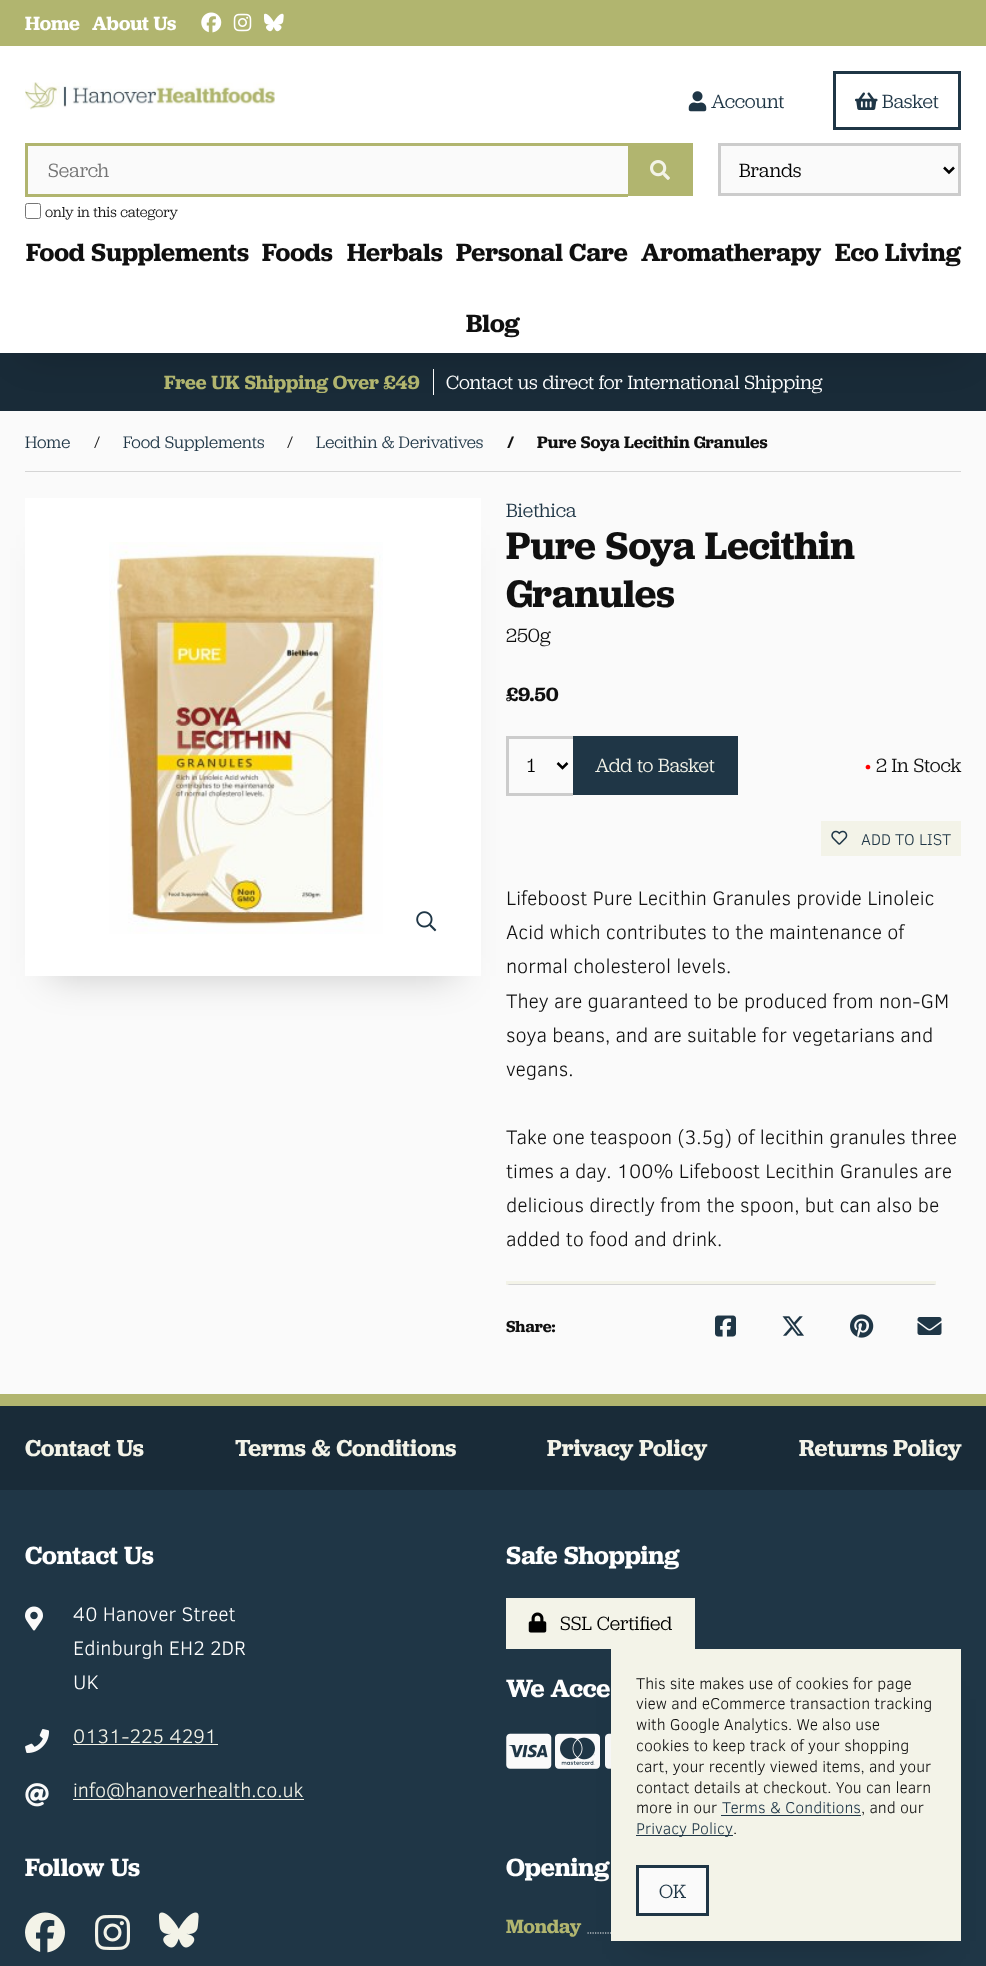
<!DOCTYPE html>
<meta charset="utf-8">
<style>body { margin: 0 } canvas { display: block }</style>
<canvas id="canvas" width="986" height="1966"></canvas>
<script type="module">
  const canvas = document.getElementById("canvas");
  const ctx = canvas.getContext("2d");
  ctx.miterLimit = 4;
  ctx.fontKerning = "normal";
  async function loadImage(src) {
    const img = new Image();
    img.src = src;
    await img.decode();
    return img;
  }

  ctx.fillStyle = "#fafafa";
  ctx.fillRect(0, 0, 986, 1966);
  ctx.fillStyle = "#b1b56f";
  ctx.fillRect(0, 0, 986, 46);
  ctx.font = "600 20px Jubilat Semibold";
  ctx.fillStyle = "#ffffff";
  ctx.fillText("Home", 25, 30);
  ctx.fillText("About Us", 92, 30);
  ctx.drawImage(await loadImage("img1.png"), 201, 12, 21, 21);
  ctx.drawImage(await loadImage("img2.png"), 233, 13, 19, 19);
  ctx.drawImage(await loadImage("img3.png"), 264, 13, 20, 19);
  ctx.fillRect(0, 46, 986, 307);
  ctx.drawImage(await loadImage("img4.png"), 25, 82, 250, 28);
  ctx.drawImage(await loadImage("img5.png"), 688, 91, 19, 21);
  ctx.font = "20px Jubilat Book";
  ctx.fillStyle = "#1f3646";
  ctx.fillText("Account", 711, 108);
  ctx.strokeStyle = "#1f3646";
  ctx.lineWidth = 3;
  ctx.strokeRect(834.5, 72.5, 125, 56);
  ctx.drawImage(await loadImage("img6.png"), 855, 92, 23, 18);
  ctx.fillText("Basket", 882, 108);
  ctx.fillStyle = "#fafafa";
  ctx.fillRect(28, 146, 600, 48);
  ctx.fillStyle = "#b1b56f";
  ctx.fillRect(25, 143, 603, 3);
  ctx.fillRect(25, 194, 603, 3);
  ctx.fillRect(25, 143, 3, 53);
  ctx.fillStyle = "#757575";
  ctx.fillText("Search", 48, 177);
  ctx.fillStyle = "#b1b56f";
  ctx.fillRect(628, 143, 65, 53);
  ctx.drawImage(await loadImage("img7.png"), 650, 160, 20, 20);
  ctx.fillStyle = "#192b38";
  ctx.fillRect(0, 353, 986, 58);
  ctx.fillStyle = "#ffffff";
  ctx.fillRect(433, 369, 1, 26);
  ctx.save();
  ctx.beginPath();
  ctx.moveTo(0, 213);
  ctx.lineTo(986, 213);
  ctx.lineTo(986, 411);
  ctx.lineTo(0, 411);
  ctx.closePath();
  ctx.moveTo(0, 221);
  ctx.lineTo(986, 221);
  ctx.lineTo(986, 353);
  ctx.lineTo(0, 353);
  ctx.closePath();
  ctx.clip("evenodd");
  ctx.fillStyle = "rgba(0, 0, 0, 0.2)";
  ctx.filter = "blur(19px)";
  ctx.beginPath();
  ctx.rect(25, 271, 936, 82);
  ctx.fill();
  ctx.filter = "none";
  ctx.restore();
  ctx.beginPath();
  ctx.roundRect(25.5, 203.5, 15, 15, 2);
  ctx.strokeStyle = "#767676";
  ctx.lineWidth = 1;
  ctx.stroke();
  ctx.font = "15px Jubilat Book";
  ctx.fillStyle = "#101010";
  ctx.fillText("only in this category", 45, 217);
  ctx.fillStyle = "#fafafa";
  ctx.beginPath();
  ctx.rect(719.5, 144.5, 240, 50);
  ctx.fill();
  ctx.strokeStyle = "#cccccc";
  ctx.lineWidth = 3;
  ctx.stroke();
  ctx.beginPath();
  ctx.moveTo(944, 167.5);
  ctx.lineTo(949, 172.5);
  ctx.lineTo(954, 167.5);
  ctx.strokeStyle = "#000000";
  ctx.lineWidth = 2.5;
  ctx.stroke();
  ctx.font = "20px Jubilat Book";
  ctx.fillStyle = "#000000";
  ctx.fillText("Brands", 739, 177);
  ctx.font = "600 26px Jubilat Semibold";
  ctx.fillStyle = "#101010";
  ctx.fillText("Food Supplements", 26, 261);
  ctx.fillText("Foods", 262, 261);
  ctx.fillText("Herbals", 347, 261);
  ctx.fillText("Personal Care", 456, 261);
  ctx.fillText("Aromatherapy", 641, 261);
  ctx.fillText("Eco Living", 835, 261);
  ctx.fillText("Blog", 466, 332);
  ctx.font = "600 20px Jubilat Semibold";
  ctx.fillStyle = "#b1b56f";
  ctx.fillText("Free UK Shipping Over £49", 164, 389);
  ctx.font = "20px Jubilat Book";
  ctx.fillStyle = "#ffffff";
  ctx.fillText("Contact us direct for International Shipping", 446, 389);
  ctx.fillStyle = "#d5d5d5";
  ctx.fillRect(25, 471, 936, 1);
  ctx.font = "17.5px Jubilat Book";
  ctx.fillStyle = "#1f3646";
  ctx.fillText("Home", 25, 448);
  ctx.fillStyle = "#101010";
  ctx.fillText("/", 94, 448);
  ctx.fillStyle = "#1f3646";
  ctx.fillText("Food Supplements", 123, 448);
  ctx.fillStyle = "#101010";
  ctx.fillText("/", 287, 448);
  ctx.fillStyle = "#1f3646";
  ctx.fillText("Lecithin & Derivatives", 316, 448);
  ctx.font = "600 17.5px Jubilat Semibold";
  ctx.fillStyle = "#101010";
  ctx.fillText("/", 507, 448);
  ctx.fillText("Pure Soya Lecithin Granules", 537, 448);
  ctx.fillStyle = "rgba(0, 0, 0, 0.2)";
  ctx.filter = "blur(19px)";
  ctx.beginPath();
  ctx.rect(50, 548, 406, 428);
  ctx.fill();
  ctx.filter = "none";
  ctx.fillStyle = "#ffffff";
  ctx.fillRect(25, 498, 456, 478);
  ctx.drawImage(await loadImage("img8.png"), 109, 542, 274, 392);
  ctx.drawImage(await loadImage("img9.png"), 416, 911, 21, 21);
  ctx.font = "20px Jubilat Book";
  ctx.fillStyle = "#1f3646";
  ctx.fillText("Biethica", 506, 517);
  ctx.font = "600 40px Jubilat Semibold";
  ctx.fillStyle = "#101010";
  ctx.fillText("Pure Soya Lecithin", 506, 559);
  ctx.fillText("Granules", 506, 607);
  ctx.font = "20px Jubilat Book";
  ctx.fillText("250g", 506, 642);
  ctx.font = "600 20px Jubilat Semibold";
  ctx.fillText("£9.50", 506, 701);
  ctx.fillStyle = "#cccccc";
  ctx.fillRect(506, 736, 67, 3);
  ctx.fillRect(506, 793, 67, 3);
  ctx.fillRect(506, 736, 3, 59);
  ctx.beginPath();
  ctx.moveTo(557.5, 763);
  ctx.lineTo(562.5, 768);
  ctx.lineTo(567.5, 763);
  ctx.stroke();
  ctx.font = "20px Jubilat Book";
  ctx.fillStyle = "#000000";
  ctx.fillText("1", 527, 772);
  ctx.fillStyle = "#1f3646";
  ctx.fillRect(573, 736, 165, 59);
  ctx.fillStyle = "#f3f3e8";
  ctx.fillText("Add to Basket", 595, 772);
  ctx.fillStyle = "#ff0000";
  ctx.fillText("•", 865, 772);
  ctx.fillStyle = "#101010";
  ctx.fillText("2 In Stock", 876, 772);
  ctx.fillStyle = "#f3f3e8";
  ctx.fillRect(821, 821, 140, 35);
  ctx.drawImage(await loadImage("img10.png"), 831, 830, 17, 15);
  ctx.font = "300 16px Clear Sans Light";
  ctx.fillStyle = "#1f3646";
  ctx.fillText("ADD TO LIST", 861, 845);
  ctx.font = "300 20px Clear Sans Light";
  ctx.fillStyle = "#101010";
  ctx.fillText("Lifeboost Pure Lecithin Granules provide Linoleic", 506, 905);
  ctx.fillText("Acid which contributes to the maintenance of", 506, 939);
  ctx.fillText("normal cholesterol levels.", 506, 973);
  ctx.fillText("They are guaranteed to be produced from non-GM", 506, 1008);
  ctx.fillText("soya beans, and are suitable for vegetarians and", 506, 1042);
  ctx.fillText("vegans.", 506, 1076);
  ctx.fillText("Take one teaspoon (3.5g) of lecithin granules three", 506, 1144);
  ctx.fillText("times a day. 100% Lifeboost Lecithin Granules are", 506, 1178);
  ctx.fillText("delicious directly from the spoon, but can also be", 506, 1212);
  ctx.fillText("added to food and drink.", 506, 1246);
  ctx.fillStyle = "#f3f3e8";
  ctx.fillRect(506, 1281, 430, 3);
  ctx.beginPath();
  ctx.moveTo(936, 1281);
  ctx.lineTo(936, 1285);
  ctx.lineTo(934, 1284);
  ctx.closePath();
  ctx.fill();
  ctx.fillStyle = "rgba(0, 0, 0, 0.15)";
  ctx.beginPath();
  ctx.moveTo(936, 1285);
  ctx.lineTo(506, 1285);
  ctx.lineTo(509, 1284);
  ctx.lineTo(934, 1284);
  ctx.closePath();
  ctx.fill();
  ctx.fillStyle = "#f3f3e8";
  ctx.beginPath();
  ctx.moveTo(506, 1285);
  ctx.lineTo(506, 1281);
  ctx.lineTo(509, 1284);
  ctx.closePath();
  ctx.fill();
  ctx.font = "600 16.5px Jubilat Semibold";
  ctx.fillStyle = "#101010";
  ctx.fillText("Share:", 506, 1332);
  ctx.drawImage(await loadImage("img11.png"), 715, 1315, 21, 22);
  ctx.drawImage(await loadImage("img12.png"), 782, 1316, 22, 20);
  ctx.drawImage(await loadImage("img13.png"), 850, 1314, 24, 24);
  ctx.drawImage(await loadImage("img14.png"), 917, 1317, 25, 18);
  ctx.fillStyle = "#1f3646";
  ctx.fillRect(0, 1490, 986, 476);
  ctx.fillStyle = "#b1b56f";
  ctx.fillRect(0, 1394, 986, 12);
  ctx.fillStyle = "#192b38";
  ctx.beginPath();
  ctx.moveTo(519, 1406);
  ctx.lineTo(961, 1406);
  ctx.lineTo(961, 1490);
  ctx.lineTo(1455, 1490);
  ctx.lineTo(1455, 1406);
  ctx.closePath();
  ctx.fill();
  ctx.beginPath();
  ctx.moveTo(-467, 1406);
  ctx.lineTo(-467, 1490);
  ctx.lineTo(25, 1490);
  ctx.lineTo(25, 1406);
  ctx.lineTo(469, 1406);
  ctx.closePath();
  ctx.fill();
  ctx.fillRect(25, 1406, 936, 84);
  ctx.font = "600 24px Jubilat Semibold";
  ctx.fillStyle = "#f3f3e8";
  ctx.fillText("Contact Us", 25, 1456);
  ctx.fillText("Terms & Conditions", 235, 1456);
  ctx.fillText("Privacy Policy", 547, 1456);
  ctx.fillText("Returns Policy", 799, 1456);
  ctx.font = "600 26px Jubilat Semibold";
  ctx.fillStyle = "#ffffff";
  ctx.fillText("Contact Us", 25, 1564);
  ctx.drawImage(await loadImage("img15.png"), 25, 1606, 18, 25);
  ctx.font = "300 20px Clear Sans Light";
  ctx.fillText("40 Hanover Street", 73, 1621);
  ctx.fillText("Edinburgh EH2 2DR", 73, 1655);
  ctx.fillText("UK", 73, 1689);
  ctx.drawImage(await loadImage("img16.png"), 25, 1729, 25, 24);
  ctx.fillStyle = "#f3f3e8";
  ctx.fillText("0131-225 4291", 73, 1743);
  ctx.fillRect(73, 1744, 145, 1);
  ctx.drawImage(await loadImage("img17.png"), 25, 1783, 24, 24);
  ctx.fillRect(73, 1799, 231, 1);
  ctx.fillText("info@hanoverhealth.co.uk", 73, 1797);
  ctx.font = "600 26px Jubilat Semibold";
  ctx.fillStyle = "#ffffff";
  ctx.fillText("Safe Shopping", 506, 1564);
  ctx.fillStyle = "#f3f3e8";
  ctx.fillRect(506, 1598, 189, 51);
  ctx.drawImage(await loadImage("img18.png"), 528, 1612, 19, 21);
  ctx.font = "20px Jubilat Book";
  ctx.fillStyle = "#000000";
  ctx.fillText("SSL Certified", 560, 1630);
  ctx.font = "600 26px Jubilat Semibold";
  ctx.fillStyle = "#ffffff";
  ctx.fillText("We Acce", 506, 1697);
  ctx.drawImage(await loadImage("img19.png"), 506, 1733, 46, 36);
  ctx.drawImage(await loadImage("img20.png"), 555, 1733, 45, 36);
  ctx.drawImage(await loadImage("img21.png"), 605, 1733, 6, 36);
  ctx.fillText("Follow Us", 25, 1876);
  ctx.drawImage(await loadImage("img22.png"), 25, 1912, 40, 41);
  ctx.drawImage(await loadImage("img23.png"), 95, 1915, 35, 35);
  ctx.drawImage(await loadImage("img24.png"), 159, 1912, 40, 36);
  ctx.fillText("Opening", 506, 1876);
  ctx.font = "600 20px Jubilat Semibold";
  ctx.fillStyle = "#b1b56f";
  ctx.fillText("Monday", 506, 1933);
  ctx.beginPath();
  ctx.moveTo(587.5, 1933);
  ctx.lineTo(799, 1933);
  ctx.strokeStyle = "#fafafa";
  ctx.lineWidth = 1.2;
  ctx.setLineDash([1.25, 1.25]);
  ctx.stroke();
  ctx.fillStyle = "rgba(0, 0, 0, 0.2)";
  ctx.filter = "blur(19px)";
  ctx.beginPath();
  ctx.rect(636, 1699, 300, 242);
  ctx.fill();
  ctx.filter = "none";
  ctx.fillStyle = "#f3f3e8";
  ctx.fillRect(611, 1649, 350, 292);
  ctx.font = "300 16px Clear Sans Light";
  ctx.fillStyle = "#101010";
  ctx.fillText("This site makes use of cookies for page", 636, 1689);
  ctx.fillText("view and eCommerce transaction tracking", 636, 1709);
  ctx.fillText("with Google Analytics. We also use", 636, 1730);
  ctx.fillText("cookies to keep track of your shopping", 636, 1751);
  ctx.fillText("cart, your recently viewed items, and your", 636, 1772);
  ctx.fillText("contact details at checkout. You can learn", 636, 1793);
  ctx.fillText("more in our", 636, 1813);
  ctx.fillStyle = "#1f3646";
  ctx.fillText("Terms & Conditions", 722, 1813);
  ctx.fillRect(721, 1815, 140, 1);
  ctx.fillStyle = "#101010";
  ctx.fillText(", and our", 861, 1813);
  ctx.fillStyle = "#1f3646";
  ctx.fillRect(636, 1835, 97, 1);
  ctx.fillText("Privacy Policy", 636, 1834);
  ctx.fillStyle = "#101010";
  ctx.fillText(".", 733, 1834);
  ctx.fillStyle = "#fafafa";
  ctx.beginPath();
  ctx.rect(637.5, 1866.5, 70, 48);
  ctx.fill();
  ctx.strokeStyle = "#1f3646";
  ctx.lineWidth = 3;
  ctx.setLineDash([]);
  ctx.stroke();
  ctx.font = "20px Jubilat Book";
  ctx.fillStyle = "#1f3646";
  ctx.fillText("OK", 659, 1898);
</script>
